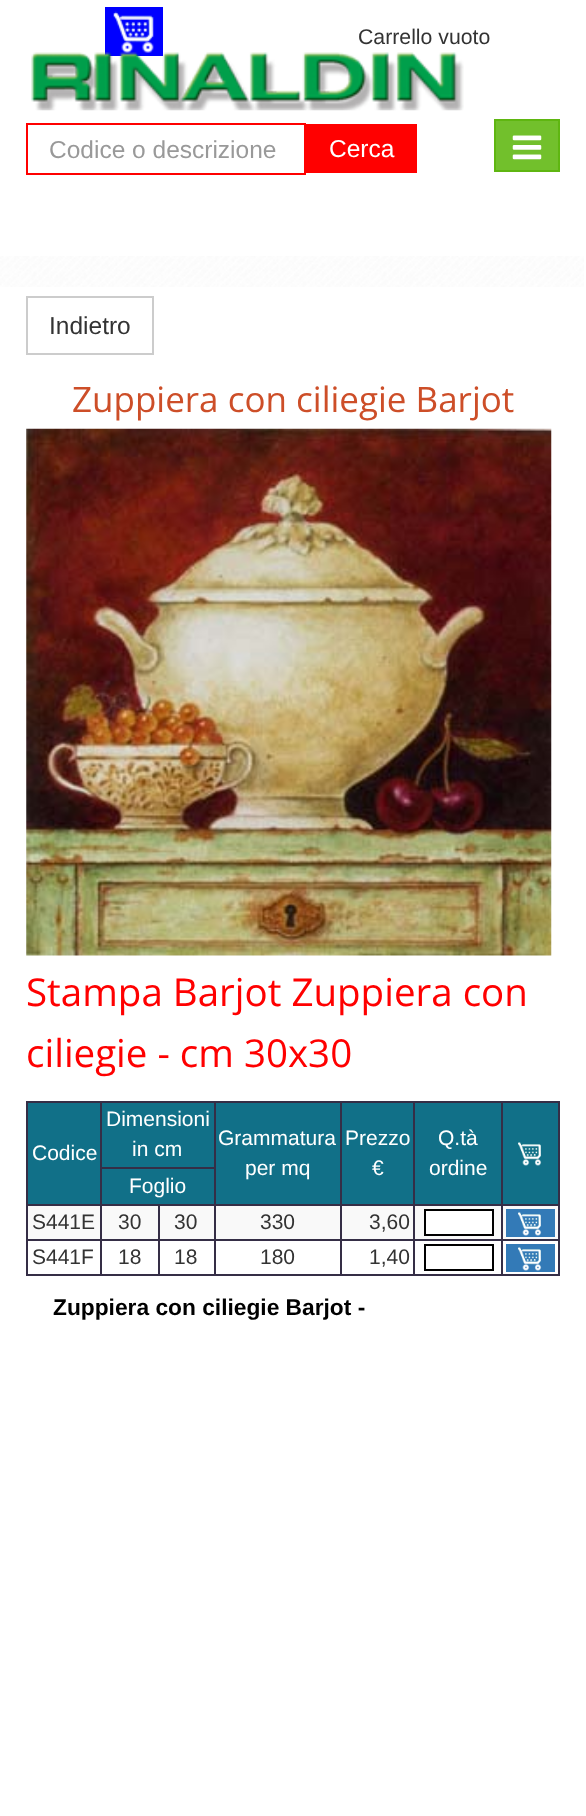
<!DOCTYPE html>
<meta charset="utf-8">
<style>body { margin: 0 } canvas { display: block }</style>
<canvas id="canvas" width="586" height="1816"></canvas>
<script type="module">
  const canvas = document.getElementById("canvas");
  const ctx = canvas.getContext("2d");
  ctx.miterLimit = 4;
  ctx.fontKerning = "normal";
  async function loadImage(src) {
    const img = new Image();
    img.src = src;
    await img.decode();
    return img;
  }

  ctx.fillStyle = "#ffffff";
  ctx.fillRect(0, 0, 586, 1816);
  ctx.fillStyle = "#0000ff";
  ctx.fillRect(105, 7, 58, 49);
  ctx.drawImage(await loadImage("img1.png"), 113, 11, 41, 42);
  ctx.font = "21.25px Liberation Sans";
  ctx.fillStyle = "#333333";
  ctx.fillText("Carrello vuoto", 358, 44);
  ctx.drawImage(await loadImage("img2.png"), 31, 52, 433, 59);
  ctx.strokeStyle = "#ff0000";
  ctx.lineWidth = 2;
  ctx.strokeRect(27, 124, 278, 50);
  ctx.font = "24.5px Liberation Sans";
  ctx.fillStyle = "#999999";
  ctx.fillText("Codice o descrizione", 49, 158);
  ctx.fillStyle = "#ff0000";
  ctx.fillRect(306, 124, 111, 49);
  ctx.fillStyle = "#ffffff";
  ctx.fillText("Cerca", 329, 157);
  ctx.fillStyle = "#72c02c";
  ctx.beginPath();
  ctx.rect(495, 120, 64, 51);
  ctx.fill();
  ctx.strokeStyle = "#5fb611";
  ctx.stroke();
  ctx.drawImage(await loadImage("img3.png"), 512, 135, 30, 25);
  ctx.drawImage(await loadImage("img4.png"), 0, 256, 584, 31);
  ctx.strokeStyle = "#cccccc";
  ctx.strokeRect(27, 297, 126, 57);
  ctx.fillStyle = "#333333";
  ctx.fillText("Indietro", 49, 334);
  ctx.font = "35px Open Sans";
  ctx.fillStyle = "#cd4e28";
  ctx.fillText("Zuppiera con ciliegie Barjot", 72, 412);
  ctx.drawImage(await loadImage("img5.png"), 26, 428, 526, 528);
  ctx.font = "38.5px Open Sans";
  ctx.fillStyle = "#ff0000";
  ctx.fillText("Stampa Barjot Zuppiera con", 26, 1006);
  ctx.fillText("ciliegie - cm 30x30", 26, 1067);
  ctx.fillStyle = "#352e46";
  ctx.fillRect(26, 1101, 534, 2);
  ctx.fillRect(558, 1101, 2, 175);
  ctx.fillRect(26, 1274, 534, 2);
  ctx.fillRect(26, 1101, 2, 175);
  ctx.fillStyle = "#117088";
  ctx.fillRect(28, 1103, 530, 101);
  ctx.font = "21px Liberation Sans";
  ctx.fillStyle = "#ffffff";
  ctx.fillText("Codice", 32, 1160);
  ctx.fillText("Dimensioni", 106, 1126);
  ctx.fillText("in cm", 132, 1156);
  ctx.fillStyle = "#352e46";
  ctx.fillRect(100, 1167, 115, 2);
  ctx.fillRect(501, 1204, 59, 2);
  ctx.fillStyle = "#f9f9f9";
  ctx.fillRect(28, 1206, 530, 33);
  ctx.fillStyle = "#352e46";
  ctx.fillRect(501, 1239, 59, 2);
  ctx.fillRect(501, 1239, 2, 37);
  ctx.fillRect(413, 1239, 89, 2);
  ctx.fillRect(501, 1204, 2, 37);
  ctx.fillRect(413, 1204, 89, 2);
  ctx.fillRect(413, 1239, 2, 37);
  ctx.fillRect(340, 1239, 75, 2);
  ctx.fillRect(413, 1204, 2, 37);
  ctx.fillRect(340, 1204, 75, 2);
  ctx.fillRect(340, 1239, 2, 37);
  ctx.fillRect(214, 1239, 127, 2);
  ctx.fillRect(340, 1204, 2, 37);
  ctx.fillRect(214, 1204, 127, 2);
  ctx.fillRect(214, 1239, 2, 37);
  ctx.fillRect(158, 1239, 57, 2);
  ctx.fillRect(214, 1204, 2, 37);
  ctx.fillRect(158, 1204, 57, 2);
  ctx.fillRect(214, 1101, 2, 105);
  ctx.fillStyle = "#ffffff";
  ctx.fillText("Grammatura", 218, 1145);
  ctx.fillText("per mq", 245, 1175);
  ctx.fillStyle = "#352e46";
  ctx.fillRect(340, 1101, 2, 105);
  ctx.fillStyle = "#ffffff";
  ctx.fillText("Prezzo", 345, 1145);
  ctx.fillText("€", 372, 1175);
  ctx.fillStyle = "#352e46";
  ctx.fillRect(413, 1101, 2, 105);
  ctx.fillStyle = "#ffffff";
  ctx.fillText("Q.tà", 438, 1145);
  ctx.fillText("ordine", 429, 1175);
  ctx.fillStyle = "#352e46";
  ctx.fillRect(501, 1101, 2, 105);
  ctx.drawImage(await loadImage("img6.png"), 518, 1142, 24, 24);
  ctx.fillRect(158, 1239, 2, 37);
  ctx.fillRect(100, 1239, 59, 2);
  ctx.fillRect(158, 1204, 2, 37);
  ctx.fillRect(100, 1204, 59, 2);
  ctx.fillRect(100, 1239, 2, 37);
  ctx.fillRect(26, 1239, 76, 2);
  ctx.fillRect(100, 1204, 2, 37);
  ctx.fillRect(26, 1204, 76, 2);
  ctx.fillRect(100, 1101, 2, 105);
  ctx.fillStyle = "#ffffff";
  ctx.fillText("Foglio", 129, 1193);
  ctx.fillStyle = "#333333";
  ctx.fillText("S441E", 32, 1229);
  ctx.fillText("30", 118, 1229);
  ctx.fillText("30", 174, 1229);
  ctx.fillText("330", 260, 1229);
  ctx.fillText("3,60", 369, 1229);
  ctx.fillStyle = "#ffffff";
  ctx.beginPath();
  ctx.rect(425, 1210, 68, 25);
  ctx.fill();
  ctx.strokeStyle = "#000000";
  ctx.stroke();
  ctx.fillStyle = "#337ab7";
  ctx.fillRect(506, 1209, 49, 28);
  ctx.drawImage(await loadImage("img7.png"), 518, 1212, 24, 24);
  ctx.fillStyle = "#333333";
  ctx.fillText("S441F", 32, 1264);
  ctx.fillText("18", 118, 1264);
  ctx.fillText("18", 174, 1264);
  ctx.fillText("180", 260, 1264);
  ctx.fillText("1,40", 369, 1264);
  ctx.strokeRect(425, 1245, 68, 25);
  ctx.fillStyle = "#337ab7";
  ctx.fillRect(506, 1244, 49, 28);
  ctx.drawImage(await loadImage("img7.png"), 518, 1247, 24, 24);
  ctx.font = "bold 22.75px Liberation Sans";
  ctx.fillStyle = "#000000";
  ctx.fillText("Zuppiera con ciliegie Barjot -", 53, 1315);
</script>
